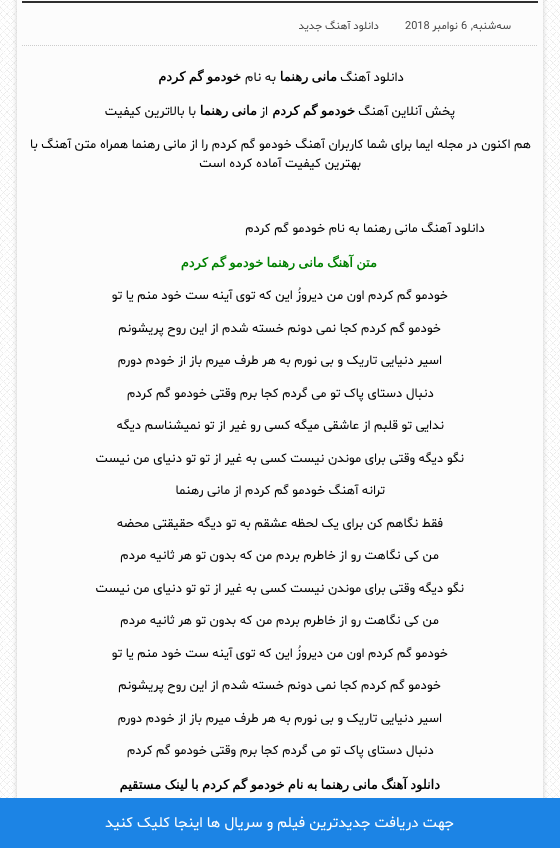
<!DOCTYPE html>
<meta charset="utf-8">
<style>body { margin: 0 } canvas { display: block }</style>
<canvas id="canvas" width="560" height="848"></canvas>
<script type="module">
  const canvas = document.getElementById("canvas");
  const ctx = canvas.getContext("2d");
  ctx.miterLimit = 4;
  ctx.fontKerning = "normal";
  async function loadImage(src) {
    const img = new Image();
    img.src = src;
    await img.decode();
    return img;
  }

  ctx.fillStyle = "#ffffff";
  ctx.fillRect(0, 0, 560, 848);
  ctx.drawImage(await loadImage("img1.png"), 0, 0, 560, 798);
  ctx.fillStyle = "#cccccc";
  ctx.filter = "blur(2.5px)";
  ctx.beginPath();
  ctx.roundRect(17, -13, 526, 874, 5);
  ctx.fill();
  ctx.filter = "none";
  ctx.fillStyle = "#fcfcfc";
  ctx.fillRect(17, 0, 526, 798);
  ctx.fillStyle = "#2e2e2e";
  ctx.fillRect(22, 1, 516, 2);
  ctx.beginPath();
  ctx.moveTo(22, 45.5);
  ctx.lineTo(538, 45.5);
  ctx.strokeStyle = "#cccccc";
  ctx.setLineDash([1, 1]);
  ctx.stroke();
  ctx.direction = "rtl";
  ctx.font = "11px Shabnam";
  ctx.fillStyle = "#474747";
  ctx.fillText("سه‌شنبه,", 511, 29);
  ctx.direction = "ltr";
  ctx.fillText("6", 461, 29);
  ctx.direction = "rtl";
  ctx.fillText("نوامبر", 458, 29);
  ctx.direction = "ltr";
  ctx.fillText("2018", 405, 29);
  ctx.direction = "rtl";
  ctx.fillText("دانلود آهنگ جدید", 379, 29);
  ctx.font = "13px Shabnam";
  ctx.fillStyle = "#000000";
  ctx.fillText("دانلود آهنگ", 404, 81);
  ctx.wordSpacing = "-0.9px";
  ctx.font = "bold 13px DejaVu Sans";
  ctx.fillText("مانی رهنما", 337, 81);
  ctx.wordSpacing = "0px";
  ctx.font = "13px Shabnam";
  ctx.fillText("به نام", 276, 81);
  ctx.wordSpacing = "-0.9px";
  ctx.font = "bold 13px DejaVu Sans";
  ctx.fillText("خودمو گم کردم", 241, 81);
  ctx.wordSpacing = "0px";
  ctx.font = "13px Shabnam";
  ctx.fillText("پخش آنلاين آهنگ", 455, 115);
  ctx.wordSpacing = "-0.9px";
  ctx.font = "bold 13px DejaVu Sans";
  ctx.fillText("خودمو گم کردم", 355, 115);
  ctx.wordSpacing = "0px";
  ctx.font = "13px Shabnam";
  ctx.fillText("از", 268, 115);
  ctx.wordSpacing = "-0.9px";
  ctx.font = "bold 13px DejaVu Sans";
  ctx.fillText("مانی رهنما", 257, 115);
  ctx.wordSpacing = "0px";
  ctx.font = "13px Shabnam";
  ctx.fillText("با بالاترین کیفیت", 196, 115);
  ctx.fillText("هم اکنون در مجله ایما برای شما کاربران آهنگ خودمو گم کردم را از مانی رهنما همراه متن آهنگ با", 531, 148);
  ctx.fillText("بهترین کیفیت آماده کرده است", 361, 167);
  ctx.fillText("دانلود آهنگ مانی رهنما به نام خودمو گم کردم", 485, 232);
  ctx.wordSpacing = "-0.9px";
  ctx.font = "bold 13px DejaVu Sans";
  ctx.fillStyle = "#008000";
  ctx.fillText("متن آهنگ مانی رهنما خودمو گم کردم", 377, 267);
  ctx.wordSpacing = "0px";
  ctx.font = "13px Shabnam";
  ctx.fillStyle = "#000000";
  ctx.fillText("خودمو گم کردم اون من دیروزُ این که توی آینه ست خود منم یا تو", 448, 299);
  ctx.fillText("خودمو گم کردم کجا نمی دونم خسته شدم از این روح پریشونم", 441, 332);
  ctx.fillText("اسیر دنیایی تاریک و بی نورم به هر طرف میرم باز از خودم دورم", 442, 364);
  ctx.fillText("دنبال دستای پاک تو می گردم کجا برم وقتی خودمو گم کردم", 434, 397);
  ctx.fillText("ندایی تو قلبم از عاشقی میگه کسی رو غیر از تو نمیشناسم دیگه", 444, 429);
  ctx.fillText("نگو دیگه وقتی برای موندن نیست کسی به غیر از تو تو دنیای من نیست", 464, 462);
  ctx.fillText("ترانه آهنگ خودمو گم کردم از مانی رهنما", 385, 494);
  ctx.fillText("فقط نگاهم کن برای یک لحظه عشقم به تو دیگه حقیقتی محضه", 443, 527);
  ctx.fillText("من کی نگاهت رو از خاطرم بردم من که بدون تو هر ثانیه مردم", 439, 559);
  ctx.fillText("نگو دیگه وقتی برای موندن نیست کسی به غیر از تو تو دنیای من نیست", 464, 592);
  ctx.fillText("من کی نگاهت رو از خاطرم بردم من که بدون تو هر ثانیه مردم", 439, 624);
  ctx.fillText("خودمو گم کردم اون من دیروزُ این که توی آینه ست خود منم یا تو", 448, 657);
  ctx.fillText("خودمو گم کردم کجا نمی دونم خسته شدم از این روح پریشونم", 441, 689);
  ctx.fillText("اسیر دنیایی تاریک و بی نورم به هر طرف میرم باز از خودم دورم", 442, 722);
  ctx.fillText("دنبال دستای پاک تو می گردم کجا برم وقتی خودمو گم کردم", 434, 754);
  ctx.wordSpacing = "-0.9px";
  ctx.font = "bold 13px DejaVu Sans";
  ctx.fillText("دانلود آهنگ مانی رهنما به نام خودمو گم کردم با لینک مستقیم", 440, 789);
  ctx.fillStyle = "#1c84e5";
  ctx.fillRect(0, 798, 560, 50);
  ctx.wordSpacing = "0px";
  ctx.font = "15px Shabnam";
  ctx.fillStyle = "#ffffff";
  ctx.fillText("جهت دریافت جدیدترین فیلم و سریال ها اینجا کلیک کنید", 454, 827);
</script>
